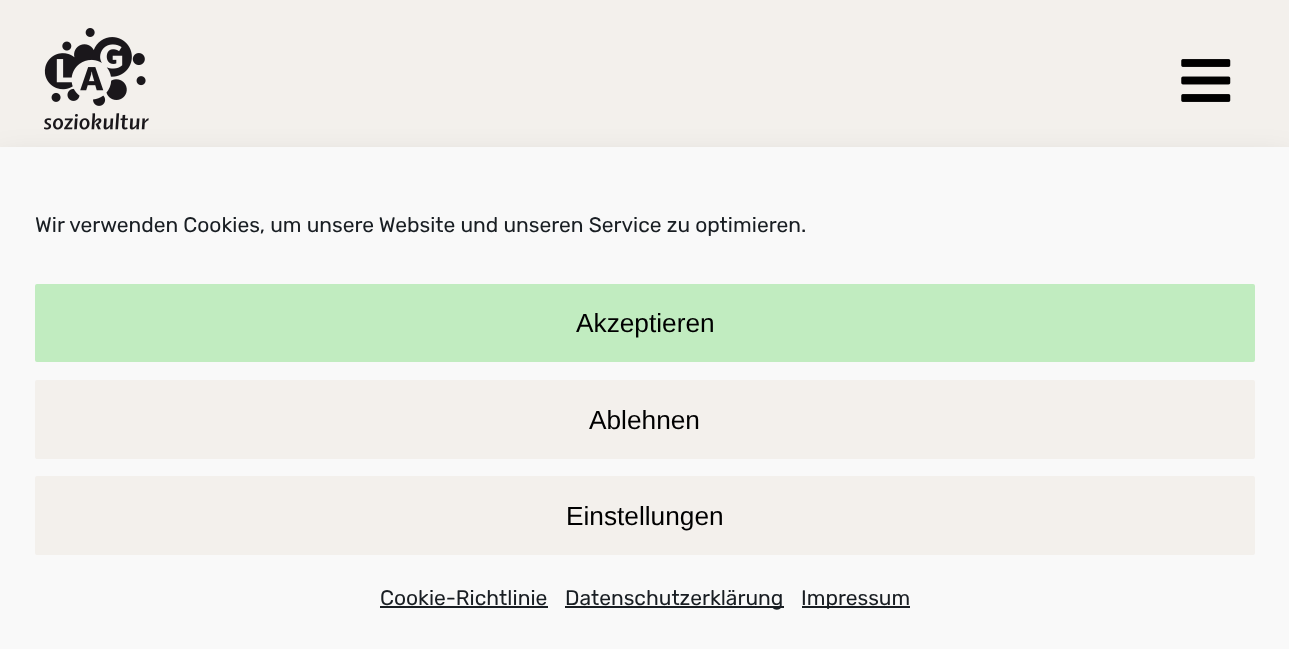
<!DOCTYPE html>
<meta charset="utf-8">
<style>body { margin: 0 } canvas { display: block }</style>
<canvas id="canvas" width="1289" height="649"></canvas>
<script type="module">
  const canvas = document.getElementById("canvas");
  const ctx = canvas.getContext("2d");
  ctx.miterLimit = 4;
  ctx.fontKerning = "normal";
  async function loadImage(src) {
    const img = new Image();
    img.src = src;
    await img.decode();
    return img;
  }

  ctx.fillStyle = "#f3f0ec";
  ctx.fillRect(0, 0, 1289, 649);
  ctx.drawImage(await loadImage("img1.png"), 44, 28, 105, 102);
  ctx.drawImage(await loadImage("img2.png"), 1181, 59, 50, 43);
  ctx.fillStyle = "rgba(0, 0, 0, 0.19)";
  ctx.filter = "blur(17.5px)";
  ctx.beginPath();
  ctx.rect(0, 165, 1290, 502);
  ctx.fill();
  ctx.filter = "none";
  ctx.fillStyle = "#f9f9f9";
  ctx.fillRect(0, 147, 1289, 502);
  ctx.font = "300 21px Rubik";
  ctx.fillStyle = "#191e23";
  ctx.fillText("Wir verwenden Cookies, um unsere Website und unseren Service zu optimieren.", 35, 232);
  ctx.fillStyle = "#c1ecc0";
  ctx.beginPath();
  ctx.roundRect(36, 285, 1218, 76, 1);
  ctx.fill();
  ctx.strokeStyle = "#c1ecc0";
  ctx.lineWidth = 2;
  ctx.stroke();
  ctx.font = "26.25px Liberation Sans";
  ctx.fillStyle = "#000000";
  ctx.fillText("Akzeptieren", 576, 332);
  ctx.fillStyle = "#f3f0ec";
  ctx.beginPath();
  ctx.roundRect(36, 381, 1218, 77, 1);
  ctx.fill();
  ctx.strokeStyle = "#f3f0ec";
  ctx.stroke();
  ctx.fillStyle = "#000000";
  ctx.fillText("Ablehnen", 589, 429);
  ctx.fillStyle = "#f3f0ec";
  ctx.beginPath();
  ctx.roundRect(36, 477, 1218, 77, 1);
  ctx.fill();
  ctx.stroke();
  ctx.fillStyle = "#000000";
  ctx.fillText("Einstellungen", 566, 525);
  ctx.font = "300 21px Rubik";
  ctx.fillStyle = "#191e23";
  ctx.fillText("Cookie-Richtlinie", 380, 605);
  ctx.fillRect(380, 606, 168, 2);
  ctx.fillRect(565, 606, 219, 2);
  ctx.fillText("Datenschutzerklärung", 565, 605);
  ctx.fillRect(802, 606, 108, 2);
  ctx.fillText("Impressum", 801, 605);
</script>
